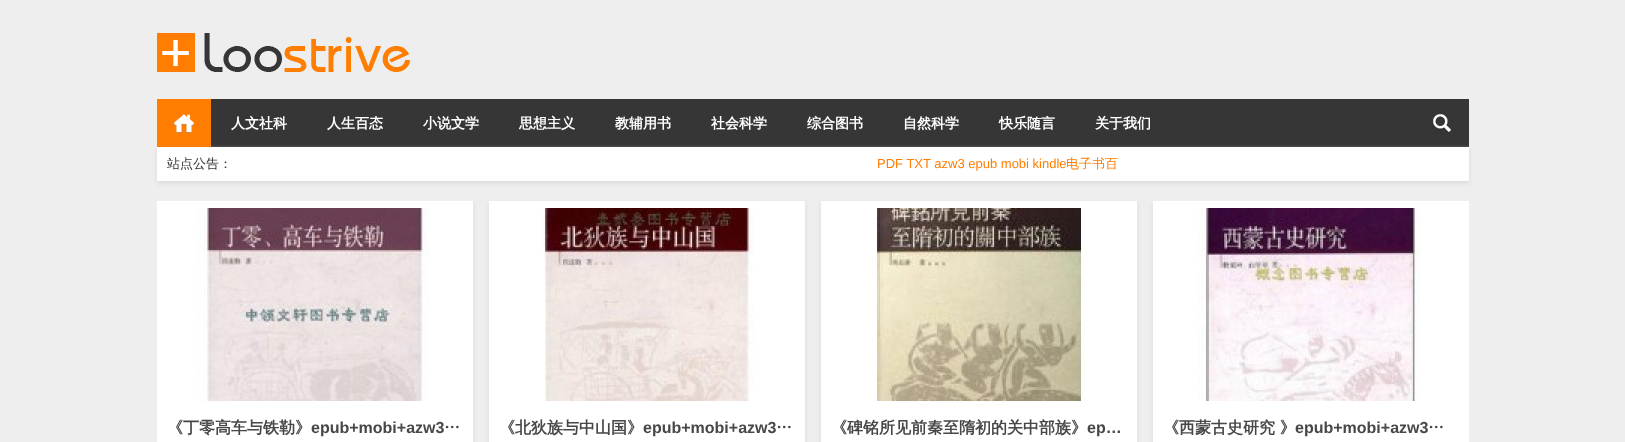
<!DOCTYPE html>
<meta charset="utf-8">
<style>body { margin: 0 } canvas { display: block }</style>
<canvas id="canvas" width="1625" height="442"></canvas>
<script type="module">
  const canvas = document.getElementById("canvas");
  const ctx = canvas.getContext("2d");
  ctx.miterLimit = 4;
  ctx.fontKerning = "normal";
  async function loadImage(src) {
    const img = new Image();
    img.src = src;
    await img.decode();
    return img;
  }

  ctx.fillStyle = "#eeeeee";
  ctx.fillRect(0, 0, 1625, 442);
  ctx.drawImage(await loadImage("img1.png"), 157, 33, 254, 39);
  ctx.fillStyle = "#363636";
  ctx.fillRect(211, 99, 1258, 48);
  ctx.fillStyle = "#d9d9d9";
  ctx.filter = "blur(2px)";
  ctx.beginPath();
  ctx.rect(157, 149, 1312, 34);
  ctx.fill();
  ctx.filter = "none";
  ctx.fillStyle = "#ff7d00";
  ctx.fillRect(157, 99, 54, 48);
  ctx.drawImage(await loadImage("img2.png"), 174, 114, 20, 19);
  ctx.font = "bold 14px WenQuanYi Zen Hei";
  ctx.fillStyle = "#ffffff";
  ctx.fillText("人文社科", 231, 128);
  ctx.fillText("人生百态", 327, 128);
  ctx.fillText("小说文学", 423, 128);
  ctx.fillText("思想主义", 519, 128);
  ctx.fillText("教辅用书", 615, 128);
  ctx.fillText("社会科学", 711, 128);
  ctx.fillText("综合图书", 807, 128);
  ctx.fillText("自然科学", 903, 128);
  ctx.fillText("快乐随言", 999, 128);
  ctx.fillText("关于我们", 1095, 128);
  ctx.drawImage(await loadImage("img3.png"), 1433, 114, 18, 19);
  ctx.fillRect(157, 147, 1312, 34);
  ctx.font = "500 13px WenQuanYi Zen Hei";
  ctx.fillStyle = "#333333";
  ctx.fillText("站点公告：", 167, 168);
  ctx.font = "13px Liberation Sans";
  ctx.fillStyle = "#ff7d00";
  ctx.fillText("PDF TXT azw3 epub mobi kindle", 877, 168);
  ctx.font = "500 13px WenQuanYi Zen Hei";
  ctx.fillText("电子书百", 1066, 168);
  ctx.save();
  ctx.beginPath();
  ctx.rect(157, 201, 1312, 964);
  ctx.clip();
  ctx.fillStyle = "#d9d9d9";
  ctx.filter = "blur(2px)";
  ctx.beginPath();
  ctx.rect(157, 203, 316, 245);
  ctx.fill();
  ctx.filter = "none";
  ctx.restore();
  ctx.fillStyle = "#ffffff";
  ctx.fillRect(157, 201, 316, 241);
  ctx.drawImage(await loadImage("img4.png"), 195, 208, 234, 193);
  ctx.font = "bold 16px WenQuanYi Zen Hei";
  ctx.fillStyle = "#474747";
  ctx.fillText("《丁零高车与铁勒》", 167, 433);
  ctx.font = "bold 16px Liberation Sans";
  ctx.fillText("epub+mobi+azw3", 311, 433);
  ctx.font = "bold 16px WenQuanYi Zen Hei";
  ctx.fillText("…", 444, 433);
  ctx.fillStyle = "#d9d9d9";
  ctx.filter = "blur(2px)";
  ctx.beginPath();
  ctx.rect(489, 203, 316, 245);
  ctx.fill();
  ctx.filter = "none";
  ctx.fillStyle = "#ffffff";
  ctx.fillRect(489, 201, 316, 241);
  ctx.drawImage(await loadImage("img5.png"), 543, 208, 211, 193);
  ctx.fillStyle = "#474747";
  ctx.fillText("《北狄族与中山国》", 499, 433);
  ctx.font = "bold 16px Liberation Sans";
  ctx.fillText("epub+mobi+azw3", 643, 433);
  ctx.font = "bold 16px WenQuanYi Zen Hei";
  ctx.fillText("…", 776, 433);
  ctx.fillStyle = "#d9d9d9";
  ctx.filter = "blur(2px)";
  ctx.beginPath();
  ctx.rect(821, 203, 316, 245);
  ctx.fill();
  ctx.filter = "none";
  ctx.fillStyle = "#ffffff";
  ctx.fillRect(821, 201, 316, 241);
  ctx.drawImage(await loadImage("img6.png"), 875, 208, 210, 193);
  ctx.fillStyle = "#474747";
  ctx.fillText("《碑铭所见前秦至隋初的关中部族》", 831, 433);
  ctx.font = "bold 16px Liberation Sans";
  ctx.fillText("ep…", 1087, 433);
  ctx.save();
  ctx.beginPath();
  ctx.rect(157, 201, 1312, 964);
  ctx.clip();
  ctx.fillStyle = "#d9d9d9";
  ctx.filter = "blur(2px)";
  ctx.beginPath();
  ctx.rect(1153, 203, 316, 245);
  ctx.fill();
  ctx.filter = "none";
  ctx.restore();
  ctx.fillStyle = "#ffffff";
  ctx.fillRect(1153, 201, 316, 241);
  ctx.drawImage(await loadImage("img7.png"), 1197, 208, 224, 193);
  ctx.font = "bold 16px WenQuanYi Zen Hei";
  ctx.fillStyle = "#474747";
  ctx.fillText("《西蒙古史研究 》", 1163, 433);
  ctx.font = "bold 16px Liberation Sans";
  ctx.fillText("epub+mobi+azw3", 1295, 433);
  ctx.font = "bold 16px WenQuanYi Zen Hei";
  ctx.fillText("…", 1428, 433);
</script>
